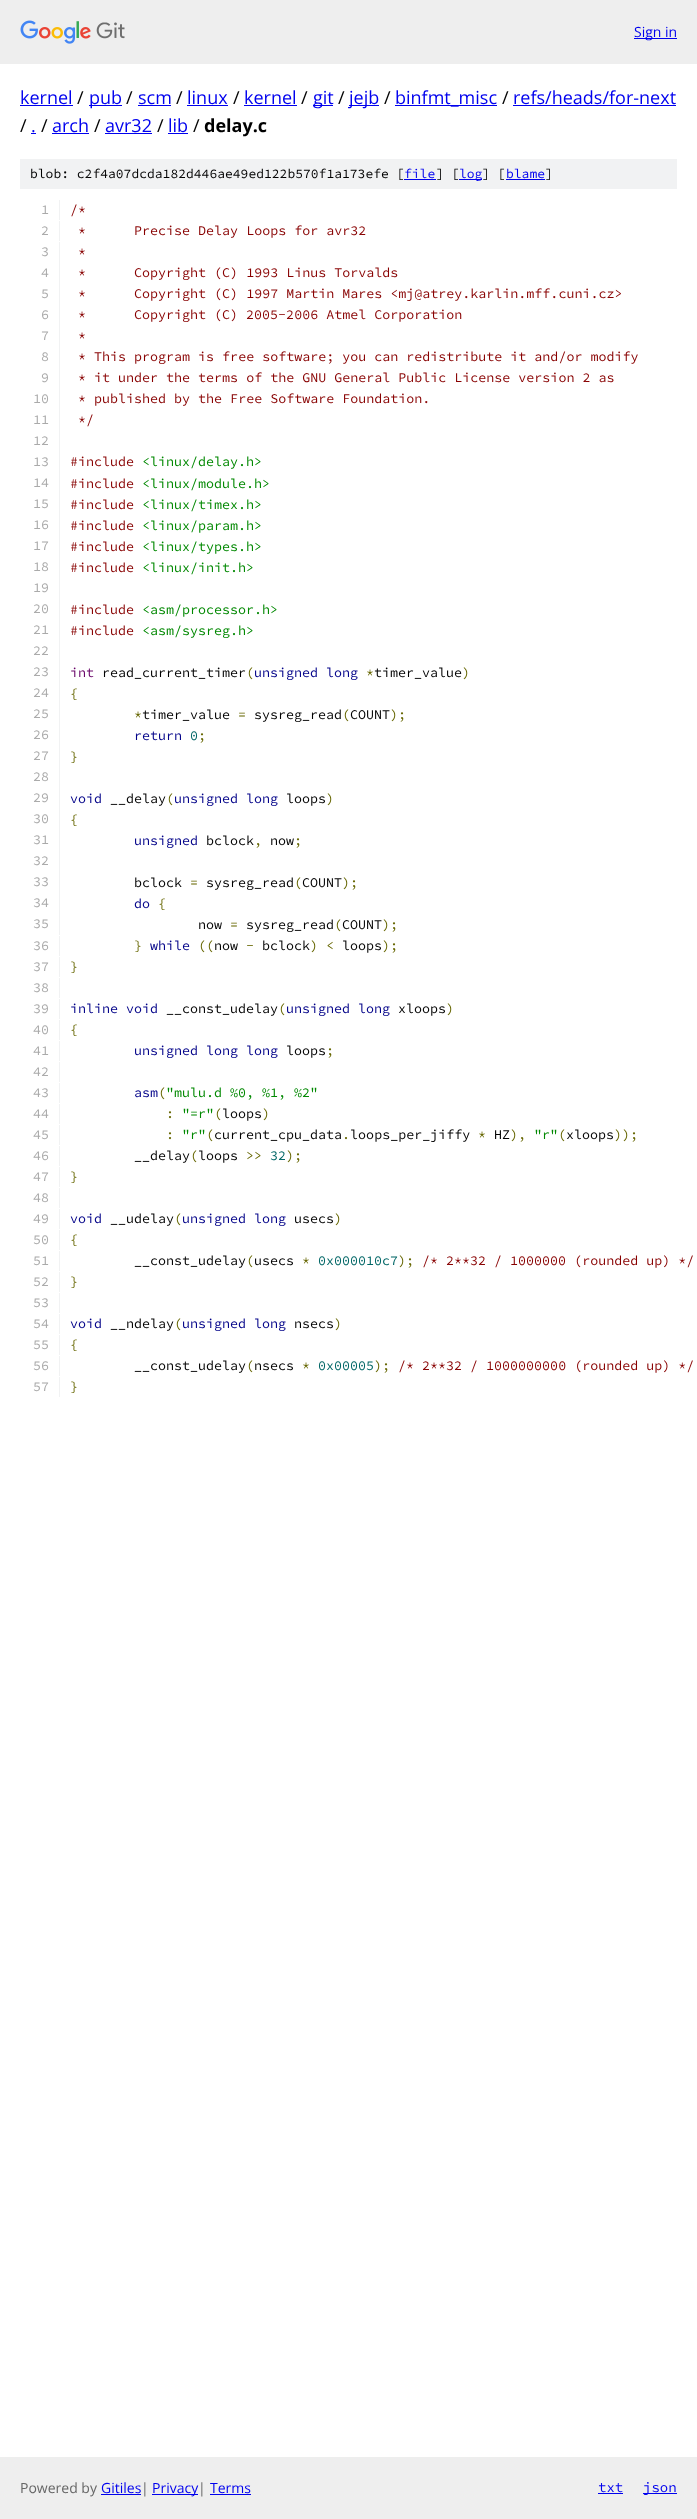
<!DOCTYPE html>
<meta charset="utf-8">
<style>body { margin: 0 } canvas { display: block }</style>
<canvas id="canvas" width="697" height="2519"></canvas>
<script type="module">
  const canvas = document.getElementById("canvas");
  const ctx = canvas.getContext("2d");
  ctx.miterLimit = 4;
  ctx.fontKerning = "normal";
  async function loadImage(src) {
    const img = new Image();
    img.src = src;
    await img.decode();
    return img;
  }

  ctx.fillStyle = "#ffffff";
  ctx.fillRect(0, 0, 697, 2519);
  ctx.fillStyle = "#eeeeee";
  ctx.fillRect(0, 0, 697, 64);
  ctx.drawImage(await loadImage("img1.png"), 20, 20, 105, 24);
  ctx.fillStyle = "#0000ee";
  ctx.fillRect(634, 38, 43, 1);
  ctx.font = "14px Open Sans";
  ctx.fillText("Sign in", 634, 37);
  ctx.font = "18px Open Sans";
  ctx.fillText("kernel", 20, 104);
  ctx.fillRect(20, 105, 53, 1);
  ctx.fillStyle = "#000000";
  ctx.fillText("/", 77, 104);
  ctx.fillStyle = "#0000ee";
  ctx.fillRect(89, 105, 33, 1);
  ctx.fillText("pub", 89, 104);
  ctx.fillStyle = "#000000";
  ctx.fillText("/", 126, 104);
  ctx.fillStyle = "#0000ee";
  ctx.fillText("scm", 138, 104);
  ctx.fillRect(138, 105, 33, 1);
  ctx.fillStyle = "#000000";
  ctx.fillText("/", 176, 104);
  ctx.fillStyle = "#0000ee";
  ctx.fillText("linux", 187, 104);
  ctx.fillRect(187, 105, 41, 1);
  ctx.fillStyle = "#000000";
  ctx.fillText("/", 233, 104);
  ctx.fillStyle = "#0000ee";
  ctx.fillText("kernel", 244, 104);
  ctx.fillRect(244, 105, 53, 1);
  ctx.fillStyle = "#000000";
  ctx.fillText("/", 301, 104);
  ctx.fillStyle = "#0000ee";
  ctx.fillRect(313, 105, 20, 1);
  ctx.fillText("git", 313, 104);
  ctx.fillStyle = "#000000";
  ctx.fillText("/", 338, 104);
  ctx.fillStyle = "#0000ee";
  ctx.fillRect(349, 105, 30, 1);
  ctx.fillText("jejb", 349, 104);
  ctx.fillStyle = "#000000";
  ctx.fillText("/", 384, 104);
  ctx.fillStyle = "#0000ee";
  ctx.fillRect(395, 105, 102, 1);
  ctx.fillText("binfmt_misc", 395, 104);
  ctx.fillStyle = "#000000";
  ctx.fillText("/", 502, 104);
  ctx.fillStyle = "#0000ee";
  ctx.fillText("refs/heads/for-next", 513, 104);
  ctx.fillRect(513, 105, 163, 1);
  ctx.fillStyle = "#000000";
  ctx.fillText("/", 20, 132);
  ctx.fillStyle = "#0000ee";
  ctx.fillText(".", 31, 132);
  ctx.fillRect(31, 133, 5, 1);
  ctx.fillStyle = "#000000";
  ctx.fillText("/", 41, 132);
  ctx.fillStyle = "#0000ee";
  ctx.fillText("arch", 52, 132);
  ctx.fillRect(52, 133, 37, 1);
  ctx.fillStyle = "#000000";
  ctx.fillText("/", 94, 132);
  ctx.fillStyle = "#0000ee";
  ctx.fillText("avr32", 105, 132);
  ctx.fillRect(105, 133, 47, 1);
  ctx.fillStyle = "#000000";
  ctx.fillText("/", 157, 132);
  ctx.fillStyle = "#0000ee";
  ctx.fillText("lib", 168, 132);
  ctx.fillRect(168, 133, 20, 1);
  ctx.fillStyle = "#000000";
  ctx.fillText("/", 193, 132);
  ctx.font = "bold 18px Open Sans";
  ctx.fillText("delay.c", 204, 132);
  ctx.fillStyle = "#f1f2f3";
  ctx.fillRect(20, 159, 657, 30);
  ctx.font = "200 13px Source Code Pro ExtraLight";
  ctx.fillStyle = "#000000";
  ctx.fillText("blob: c2f4a07dcda182d446ae49ed122b570f1a173efe [", 30, 178);
  ctx.fillStyle = "#0000ee";
  ctx.fillText("file", 404, 178);
  ctx.fillRect(404, 179, 32, 1);
  ctx.fillStyle = "#000000";
  ctx.fillText("] [", 436, 178);
  ctx.fillStyle = "#0000ee";
  ctx.fillRect(459, 179, 23, 1);
  ctx.fillText("log", 459, 178);
  ctx.fillStyle = "#000000";
  ctx.fillText("] [", 482, 178);
  ctx.fillStyle = "#0000ee";
  ctx.fillText("blame", 506, 178);
  ctx.fillRect(506, 179, 39, 1);
  ctx.fillStyle = "#000000";
  ctx.fillText("]", 545, 178);
  ctx.fillStyle = "#f1f2f3";
  ctx.fillRect(59, 200, 1, 20);
  ctx.font = "200 13.35px Source Code Pro ExtraLight";
  ctx.fillStyle = "#aaaaaa";
  ctx.fillText("1", 41, 214);
  ctx.fillStyle = "#880000";
  ctx.fillText("/*", 70, 214);
  ctx.fillStyle = "#f1f2f3";
  ctx.fillRect(59, 221, 1, 20);
  ctx.fillStyle = "#aaaaaa";
  ctx.fillText("2", 41, 235);
  ctx.fillStyle = "#880000";
  ctx.fillText("*      Precise Delay Loops for avr32", 78, 235);
  ctx.fillStyle = "#f1f2f3";
  ctx.fillRect(59, 242, 1, 693);
  ctx.fillStyle = "#aaaaaa";
  ctx.fillText("3", 41, 256);
  ctx.fillStyle = "#880000";
  ctx.fillText("*", 78, 256);
  ctx.fillStyle = "#aaaaaa";
  ctx.fillText("4", 41, 277);
  ctx.fillStyle = "#880000";
  ctx.fillText("*      Copyright (C) 1993 Linus Torvalds", 78, 277);
  ctx.fillStyle = "#aaaaaa";
  ctx.fillText("5", 41, 298);
  ctx.fillStyle = "#880000";
  ctx.fillText("*      Copyright (C) 1997 Martin Mares <mj@atrey.karlin.mff.cuni.cz>", 78, 298);
  ctx.fillStyle = "#aaaaaa";
  ctx.fillText("6", 41, 319);
  ctx.fillStyle = "#880000";
  ctx.fillText("*", 78, 319);
  ctx.fillText("Copyright (C) 2005-2006 Atmel Corporation", 134, 319);
  ctx.fillStyle = "#aaaaaa";
  ctx.fillText("7", 41, 340);
  ctx.fillStyle = "#880000";
  ctx.fillText("*", 78, 340);
  ctx.fillStyle = "#aaaaaa";
  ctx.fillText("8", 41, 361);
  ctx.fillStyle = "#880000";
  ctx.fillText("* This program is free software; you can redistribute it and/or modify", 78, 361);
  ctx.fillStyle = "#aaaaaa";
  ctx.fillText("9", 41, 382);
  ctx.fillStyle = "#880000";
  ctx.fillText("* it under the terms of the GNU General Public License version 2 as", 78, 382);
  ctx.fillStyle = "#aaaaaa";
  ctx.fillText("10", 33, 403);
  ctx.fillStyle = "#880000";
  ctx.fillText("* published by the Free Software Foundation.", 78, 403);
  ctx.fillStyle = "#aaaaaa";
  ctx.fillText("11", 33, 424);
  ctx.fillStyle = "#880000";
  ctx.fillText("*/", 78, 424);
  ctx.fillStyle = "#aaaaaa";
  ctx.fillText("12", 33, 445);
  ctx.fillText("13", 33, 466);
  ctx.fillStyle = "#880000";
  ctx.fillText("#include", 70, 466);
  ctx.fillStyle = "#008800";
  ctx.fillText("<linux/delay.h>", 142, 466);
  ctx.fillStyle = "#aaaaaa";
  ctx.fillText("14", 33, 487);
  ctx.fillStyle = "#880000";
  ctx.fillText("#include", 70, 488);
  ctx.fillStyle = "#008800";
  ctx.fillText("<linux/module.h>", 142, 488);
  ctx.fillStyle = "#aaaaaa";
  ctx.fillText("15", 33, 508);
  ctx.fillStyle = "#880000";
  ctx.fillText("#include", 70, 509);
  ctx.fillStyle = "#008800";
  ctx.fillText("<linux/timex.h>", 142, 509);
  ctx.fillStyle = "#aaaaaa";
  ctx.fillText("16", 33, 529);
  ctx.fillStyle = "#880000";
  ctx.fillText("#include", 70, 530);
  ctx.fillStyle = "#008800";
  ctx.fillText("<linux/param.h>", 142, 530);
  ctx.fillStyle = "#aaaaaa";
  ctx.fillText("17", 33, 550);
  ctx.fillStyle = "#880000";
  ctx.fillText("#include", 70, 551);
  ctx.fillStyle = "#008800";
  ctx.fillText("<linux/types.h>", 142, 551);
  ctx.fillStyle = "#aaaaaa";
  ctx.fillText("18", 33, 571);
  ctx.fillStyle = "#880000";
  ctx.fillText("#include", 70, 572);
  ctx.fillStyle = "#008800";
  ctx.fillText("<linux/init.h>", 142, 572);
  ctx.fillStyle = "#aaaaaa";
  ctx.fillText("19", 33, 592);
  ctx.fillText("20", 33, 613);
  ctx.fillStyle = "#880000";
  ctx.fillText("#include", 70, 614);
  ctx.fillStyle = "#008800";
  ctx.fillText("<asm/processor.h>", 142, 614);
  ctx.fillStyle = "#aaaaaa";
  ctx.fillText("21", 33, 634);
  ctx.fillStyle = "#880000";
  ctx.fillText("#include", 70, 635);
  ctx.fillStyle = "#008800";
  ctx.fillText("<asm/sysreg.h>", 142, 635);
  ctx.fillStyle = "#aaaaaa";
  ctx.fillText("22", 33, 655);
  ctx.fillText("23", 33, 676);
  ctx.fillStyle = "#660066";
  ctx.fillText("int", 70, 677);
  ctx.fillStyle = "#000000";
  ctx.fillText("read_current_timer", 102, 677);
  ctx.fillStyle = "#666600";
  ctx.fillText("(", 246, 677);
  ctx.fillStyle = "#000088";
  ctx.fillText("unsigned long", 254, 677);
  ctx.fillStyle = "#666600";
  ctx.fillText("*", 366, 677);
  ctx.fillStyle = "#000000";
  ctx.fillText("timer_value", 374, 677);
  ctx.fillStyle = "#666600";
  ctx.fillText(")", 462, 677);
  ctx.fillStyle = "#aaaaaa";
  ctx.fillText("24", 33, 697);
  ctx.fillStyle = "#666600";
  ctx.fillText("{", 70, 698);
  ctx.fillStyle = "#aaaaaa";
  ctx.fillText("25", 33, 718);
  ctx.fillStyle = "#000000";
  ctx.fillText("timer_value", 142, 719);
  ctx.fillText("sysreg_read COUNT", 254, 719);
  ctx.fillStyle = "#666600";
  ctx.fillText("*", 134, 719);
  ctx.fillText("=", 238, 719);
  ctx.fillText("(", 342, 719);
  ctx.fillText(");", 390, 719);
  ctx.fillStyle = "#aaaaaa";
  ctx.fillText("26", 33, 739);
  ctx.fillStyle = "#000088";
  ctx.fillText("return", 134, 740);
  ctx.fillStyle = "#006666";
  ctx.fillText("0", 190, 740);
  ctx.fillStyle = "#666600";
  ctx.fillText(";", 198, 740);
  ctx.fillStyle = "#aaaaaa";
  ctx.fillText("27", 33, 760);
  ctx.fillStyle = "#666600";
  ctx.fillText("}", 70, 761);
  ctx.fillStyle = "#aaaaaa";
  ctx.fillText("28", 33, 781);
  ctx.fillText("29", 33, 802);
  ctx.fillStyle = "#000088";
  ctx.fillText("void", 70, 803);
  ctx.fillStyle = "#000000";
  ctx.fillText("__delay", 110, 803);
  ctx.fillStyle = "#666600";
  ctx.fillText("(", 166, 803);
  ctx.fillStyle = "#000088";
  ctx.fillText("unsigned long", 174, 803);
  ctx.fillStyle = "#000000";
  ctx.fillText("loops", 286, 803);
  ctx.fillStyle = "#666600";
  ctx.fillText(")", 326, 803);
  ctx.fillStyle = "#aaaaaa";
  ctx.fillText("30", 33, 823);
  ctx.fillStyle = "#666600";
  ctx.fillText("{", 70, 824);
  ctx.fillStyle = "#aaaaaa";
  ctx.fillText("31", 33, 844);
  ctx.fillStyle = "#000088";
  ctx.fillText("unsigned", 134, 845);
  ctx.fillStyle = "#000000";
  ctx.fillText("bclock", 206, 845);
  ctx.fillStyle = "#666600";
  ctx.fillText(",", 254, 845);
  ctx.fillStyle = "#000000";
  ctx.fillText("now", 270, 845);
  ctx.fillStyle = "#666600";
  ctx.fillText(";", 294, 845);
  ctx.fillStyle = "#aaaaaa";
  ctx.fillText("32", 33, 865);
  ctx.fillText("33", 33, 886);
  ctx.fillStyle = "#000000";
  ctx.fillText("bclock", 134, 887);
  ctx.fillText("sysreg_read COUNT", 206, 887);
  ctx.fillStyle = "#666600";
  ctx.fillText("=", 190, 887);
  ctx.fillText("(", 294, 887);
  ctx.fillText(");", 342, 887);
  ctx.fillStyle = "#aaaaaa";
  ctx.fillText("34", 33, 907);
  ctx.fillStyle = "#000088";
  ctx.fillText("do", 134, 908);
  ctx.fillStyle = "#666600";
  ctx.fillText("{", 158, 908);
  ctx.fillStyle = "#aaaaaa";
  ctx.fillText("35", 33, 928);
  ctx.fillStyle = "#000000";
  ctx.fillText("sysreg_read COUNT", 246, 929);
  ctx.fillText("now", 198, 929);
  ctx.fillStyle = "#666600";
  ctx.fillText("=", 230, 929);
  ctx.fillText("(", 334, 929);
  ctx.fillText(");", 382, 929);
  ctx.fillStyle = "#f1f2f3";
  ctx.fillRect(59, 936, 1, 20);
  ctx.fillStyle = "#aaaaaa";
  ctx.fillText("36", 33, 950);
  ctx.fillStyle = "#666600";
  ctx.fillText("}", 134, 950);
  ctx.fillStyle = "#000088";
  ctx.fillText("while", 150, 950);
  ctx.fillStyle = "#666600";
  ctx.fillText("((", 198, 950);
  ctx.fillStyle = "#000000";
  ctx.fillText("now", 214, 950);
  ctx.fillStyle = "#666600";
  ctx.fillText("-", 246, 950);
  ctx.fillStyle = "#000000";
  ctx.fillText("bclock", 262, 950);
  ctx.fillStyle = "#666600";
  ctx.fillText(") <", 310, 950);
  ctx.fillStyle = "#000000";
  ctx.fillText("loops", 342, 950);
  ctx.fillStyle = "#666600";
  ctx.fillText(");", 382, 950);
  ctx.fillStyle = "#f1f2f3";
  ctx.fillRect(59, 957, 1, 20);
  ctx.fillStyle = "#aaaaaa";
  ctx.fillText("37", 33, 971);
  ctx.fillStyle = "#666600";
  ctx.fillText("}", 70, 971);
  ctx.fillStyle = "#f1f2f3";
  ctx.fillRect(59, 978, 1, 20);
  ctx.fillStyle = "#aaaaaa";
  ctx.fillText("38", 33, 992);
  ctx.fillStyle = "#f1f2f3";
  ctx.fillRect(59, 999, 1, 20);
  ctx.fillStyle = "#aaaaaa";
  ctx.fillText("39", 33, 1013);
  ctx.fillStyle = "#000088";
  ctx.fillText("inline void", 70, 1013);
  ctx.fillStyle = "#000000";
  ctx.fillText("__const_udelay", 166, 1013);
  ctx.fillStyle = "#666600";
  ctx.fillText("(", 278, 1013);
  ctx.fillStyle = "#000088";
  ctx.fillText("unsigned long", 286, 1013);
  ctx.fillStyle = "#000000";
  ctx.fillText("xloops", 398, 1013);
  ctx.fillStyle = "#666600";
  ctx.fillText(")", 446, 1013);
  ctx.fillStyle = "#f1f2f3";
  ctx.fillRect(59, 1020, 1, 20);
  ctx.fillStyle = "#aaaaaa";
  ctx.fillText("40", 33, 1034);
  ctx.fillStyle = "#666600";
  ctx.fillText("{", 70, 1034);
  ctx.fillStyle = "#f1f2f3";
  ctx.fillRect(59, 1041, 1, 20);
  ctx.fillStyle = "#aaaaaa";
  ctx.fillText("41", 33, 1055);
  ctx.fillStyle = "#000088";
  ctx.fillText("unsigned long long", 134, 1055);
  ctx.fillStyle = "#000000";
  ctx.fillText("loops", 286, 1055);
  ctx.fillStyle = "#666600";
  ctx.fillText(";", 326, 1055);
  ctx.fillStyle = "#f1f2f3";
  ctx.fillRect(59, 1062, 1, 20);
  ctx.fillStyle = "#aaaaaa";
  ctx.fillText("42", 33, 1076);
  ctx.fillStyle = "#f1f2f3";
  ctx.fillRect(59, 1083, 1, 20);
  ctx.fillStyle = "#aaaaaa";
  ctx.fillText("43", 33, 1097);
  ctx.fillStyle = "#000088";
  ctx.fillText("asm", 134, 1097);
  ctx.fillStyle = "#666600";
  ctx.fillText("(", 158, 1097);
  ctx.fillStyle = "#008800";
  ctx.fillText("\"mulu.d %0, %1, %2\"", 166, 1097);
  ctx.fillStyle = "#f1f2f3";
  ctx.fillRect(59, 1104, 1, 20);
  ctx.fillStyle = "#aaaaaa";
  ctx.fillText("44", 33, 1118);
  ctx.fillStyle = "#666600";
  ctx.fillText(":", 166, 1118);
  ctx.fillStyle = "#008800";
  ctx.fillText("\"=r\"", 182, 1118);
  ctx.fillStyle = "#666600";
  ctx.fillText("(", 214, 1118);
  ctx.fillStyle = "#000000";
  ctx.fillText("loops", 222, 1118);
  ctx.fillStyle = "#666600";
  ctx.fillText(")", 262, 1118);
  ctx.fillStyle = "#f1f2f3";
  ctx.fillRect(59, 1125, 1, 20);
  ctx.fillStyle = "#aaaaaa";
  ctx.fillText("45", 33, 1139);
  ctx.fillStyle = "#666600";
  ctx.fillText(":", 166, 1139);
  ctx.fillStyle = "#008800";
  ctx.fillText("\"r\"", 182, 1139);
  ctx.fillStyle = "#666600";
  ctx.fillText("(", 206, 1139);
  ctx.fillStyle = "#000000";
  ctx.fillText("current_cpu_data loops_per_jiffy", 214, 1139);
  ctx.fillStyle = "#666600";
  ctx.fillText("*", 478, 1139);
  ctx.fillStyle = "#000000";
  ctx.fillText("HZ", 494, 1139);
  ctx.fillStyle = "#666600";
  ctx.fillText("),", 510, 1139);
  ctx.fillStyle = "#008800";
  ctx.fillText("\"r\"", 534, 1139);
  ctx.fillStyle = "#666600";
  ctx.fillText("(", 558, 1139);
  ctx.fillStyle = "#000000";
  ctx.fillText("xloops", 566, 1139);
  ctx.fillStyle = "#666600";
  ctx.fillText("));", 614, 1139);
  ctx.fillText(".", 342, 1139);
  ctx.fillStyle = "#f1f2f3";
  ctx.fillRect(59, 1146, 1, 20);
  ctx.fillStyle = "#aaaaaa";
  ctx.fillText("46", 33, 1160);
  ctx.fillStyle = "#000000";
  ctx.fillText("__delay loops", 134, 1160);
  ctx.fillStyle = "#666600";
  ctx.fillText("(", 190, 1160);
  ctx.fillText(">>", 246, 1160);
  ctx.fillStyle = "#006666";
  ctx.fillText("32", 270, 1160);
  ctx.fillStyle = "#666600";
  ctx.fillText(");", 286, 1160);
  ctx.fillStyle = "#f1f2f3";
  ctx.fillRect(59, 1167, 1, 20);
  ctx.fillStyle = "#aaaaaa";
  ctx.fillText("47", 33, 1181);
  ctx.fillStyle = "#666600";
  ctx.fillText("}", 70, 1181);
  ctx.fillStyle = "#f1f2f3";
  ctx.fillRect(59, 1188, 1, 20);
  ctx.fillStyle = "#aaaaaa";
  ctx.fillText("48", 33, 1202);
  ctx.fillStyle = "#f1f2f3";
  ctx.fillRect(59, 1209, 1, 20);
  ctx.fillStyle = "#aaaaaa";
  ctx.fillText("49", 33, 1223);
  ctx.fillStyle = "#000088";
  ctx.fillText("void", 70, 1223);
  ctx.fillStyle = "#000000";
  ctx.fillText("__udelay", 110, 1223);
  ctx.fillStyle = "#666600";
  ctx.fillText("(", 174, 1223);
  ctx.fillStyle = "#000088";
  ctx.fillText("unsigned long", 182, 1223);
  ctx.fillStyle = "#000000";
  ctx.fillText("usecs", 294, 1223);
  ctx.fillStyle = "#666600";
  ctx.fillText(")", 334, 1223);
  ctx.fillStyle = "#f1f2f3";
  ctx.fillRect(59, 1230, 1, 20);
  ctx.fillStyle = "#aaaaaa";
  ctx.fillText("50", 33, 1244);
  ctx.fillStyle = "#666600";
  ctx.fillText("{", 70, 1244);
  ctx.fillStyle = "#f1f2f3";
  ctx.fillRect(59, 1251, 1, 20);
  ctx.fillStyle = "#aaaaaa";
  ctx.fillText("51", 33, 1265);
  ctx.fillStyle = "#000000";
  ctx.fillText("__const_udelay usecs", 134, 1265);
  ctx.fillStyle = "#666600";
  ctx.fillText("(", 246, 1265);
  ctx.fillText("*", 302, 1265);
  ctx.fillStyle = "#006666";
  ctx.fillText("0x000010c7", 318, 1265);
  ctx.fillStyle = "#666600";
  ctx.fillText(");", 398, 1265);
  ctx.fillStyle = "#880000";
  ctx.fillText("/* 2**32 / 1000000 (rounded up) */", 422, 1265);
  ctx.fillStyle = "#f1f2f3";
  ctx.fillRect(59, 1272, 1, 20);
  ctx.fillStyle = "#aaaaaa";
  ctx.fillText("52", 33, 1286);
  ctx.fillStyle = "#666600";
  ctx.fillText("}", 70, 1286);
  ctx.fillStyle = "#f1f2f3";
  ctx.fillRect(59, 1293, 1, 20);
  ctx.fillStyle = "#aaaaaa";
  ctx.fillText("53", 33, 1307);
  ctx.fillStyle = "#f1f2f3";
  ctx.fillRect(59, 1314, 1, 20);
  ctx.fillStyle = "#aaaaaa";
  ctx.fillText("54", 33, 1328);
  ctx.fillStyle = "#000088";
  ctx.fillText("void", 70, 1328);
  ctx.fillStyle = "#000000";
  ctx.fillText("__ndelay", 110, 1328);
  ctx.fillStyle = "#666600";
  ctx.fillText("(", 174, 1328);
  ctx.fillStyle = "#000088";
  ctx.fillText("unsigned long", 182, 1328);
  ctx.fillStyle = "#000000";
  ctx.fillText("nsecs", 294, 1328);
  ctx.fillStyle = "#666600";
  ctx.fillText(")", 334, 1328);
  ctx.fillStyle = "#f1f2f3";
  ctx.fillRect(59, 1335, 1, 20);
  ctx.fillStyle = "#aaaaaa";
  ctx.fillText("55", 33, 1349);
  ctx.fillStyle = "#666600";
  ctx.fillText("{", 70, 1349);
  ctx.fillStyle = "#f1f2f3";
  ctx.fillRect(59, 1356, 1, 20);
  ctx.fillStyle = "#aaaaaa";
  ctx.fillText("56", 33, 1370);
  ctx.fillStyle = "#000000";
  ctx.fillText("__const_udelay nsecs", 134, 1370);
  ctx.fillStyle = "#666600";
  ctx.fillText("(", 246, 1370);
  ctx.fillText("*", 302, 1370);
  ctx.fillStyle = "#006666";
  ctx.fillText("0x00005", 318, 1370);
  ctx.fillStyle = "#666600";
  ctx.fillText(");", 374, 1370);
  ctx.fillStyle = "#880000";
  ctx.fillText("/* 2**32 / 1000000000 (rounded up) */", 398, 1370);
  ctx.fillStyle = "#f1f2f3";
  ctx.fillRect(59, 1377, 1, 20);
  ctx.fillStyle = "#aaaaaa";
  ctx.fillText("57", 33, 1391);
  ctx.fillStyle = "#666600";
  ctx.fillText("}", 70, 1391);
  ctx.fillStyle = "#eeeeee";
  ctx.fillRect(0, 2457, 697, 62);
  ctx.font = "14px Open Sans";
  ctx.fillStyle = "#666666";
  ctx.fillText("Powered by", 20, 2493);
  ctx.fillStyle = "#0000ee";
  ctx.fillText("Gitiles", 101, 2493);
  ctx.fillRect(101, 2494, 40, 1);
  ctx.fillStyle = "#666666";
  ctx.fillText("|", 141, 2493);
  ctx.fillStyle = "#0000ee";
  ctx.fillRect(152, 2494, 46, 1);
  ctx.fillText("Privacy", 152, 2493);
  ctx.fillStyle = "#666666";
  ctx.fillText("|", 198, 2493);
  ctx.fillStyle = "#0000ee";
  ctx.fillText("Terms", 210, 2493);
  ctx.fillRect(210, 2494, 41, 1);
  ctx.font = "200 14px Source Code Pro ExtraLight";
  ctx.fillText("txt", 598, 2492);
  ctx.fillRect(598, 2493, 25, 1);
  ctx.fillRect(643, 2493, 34, 1);
  ctx.fillText("json", 643, 2492);
</script>
